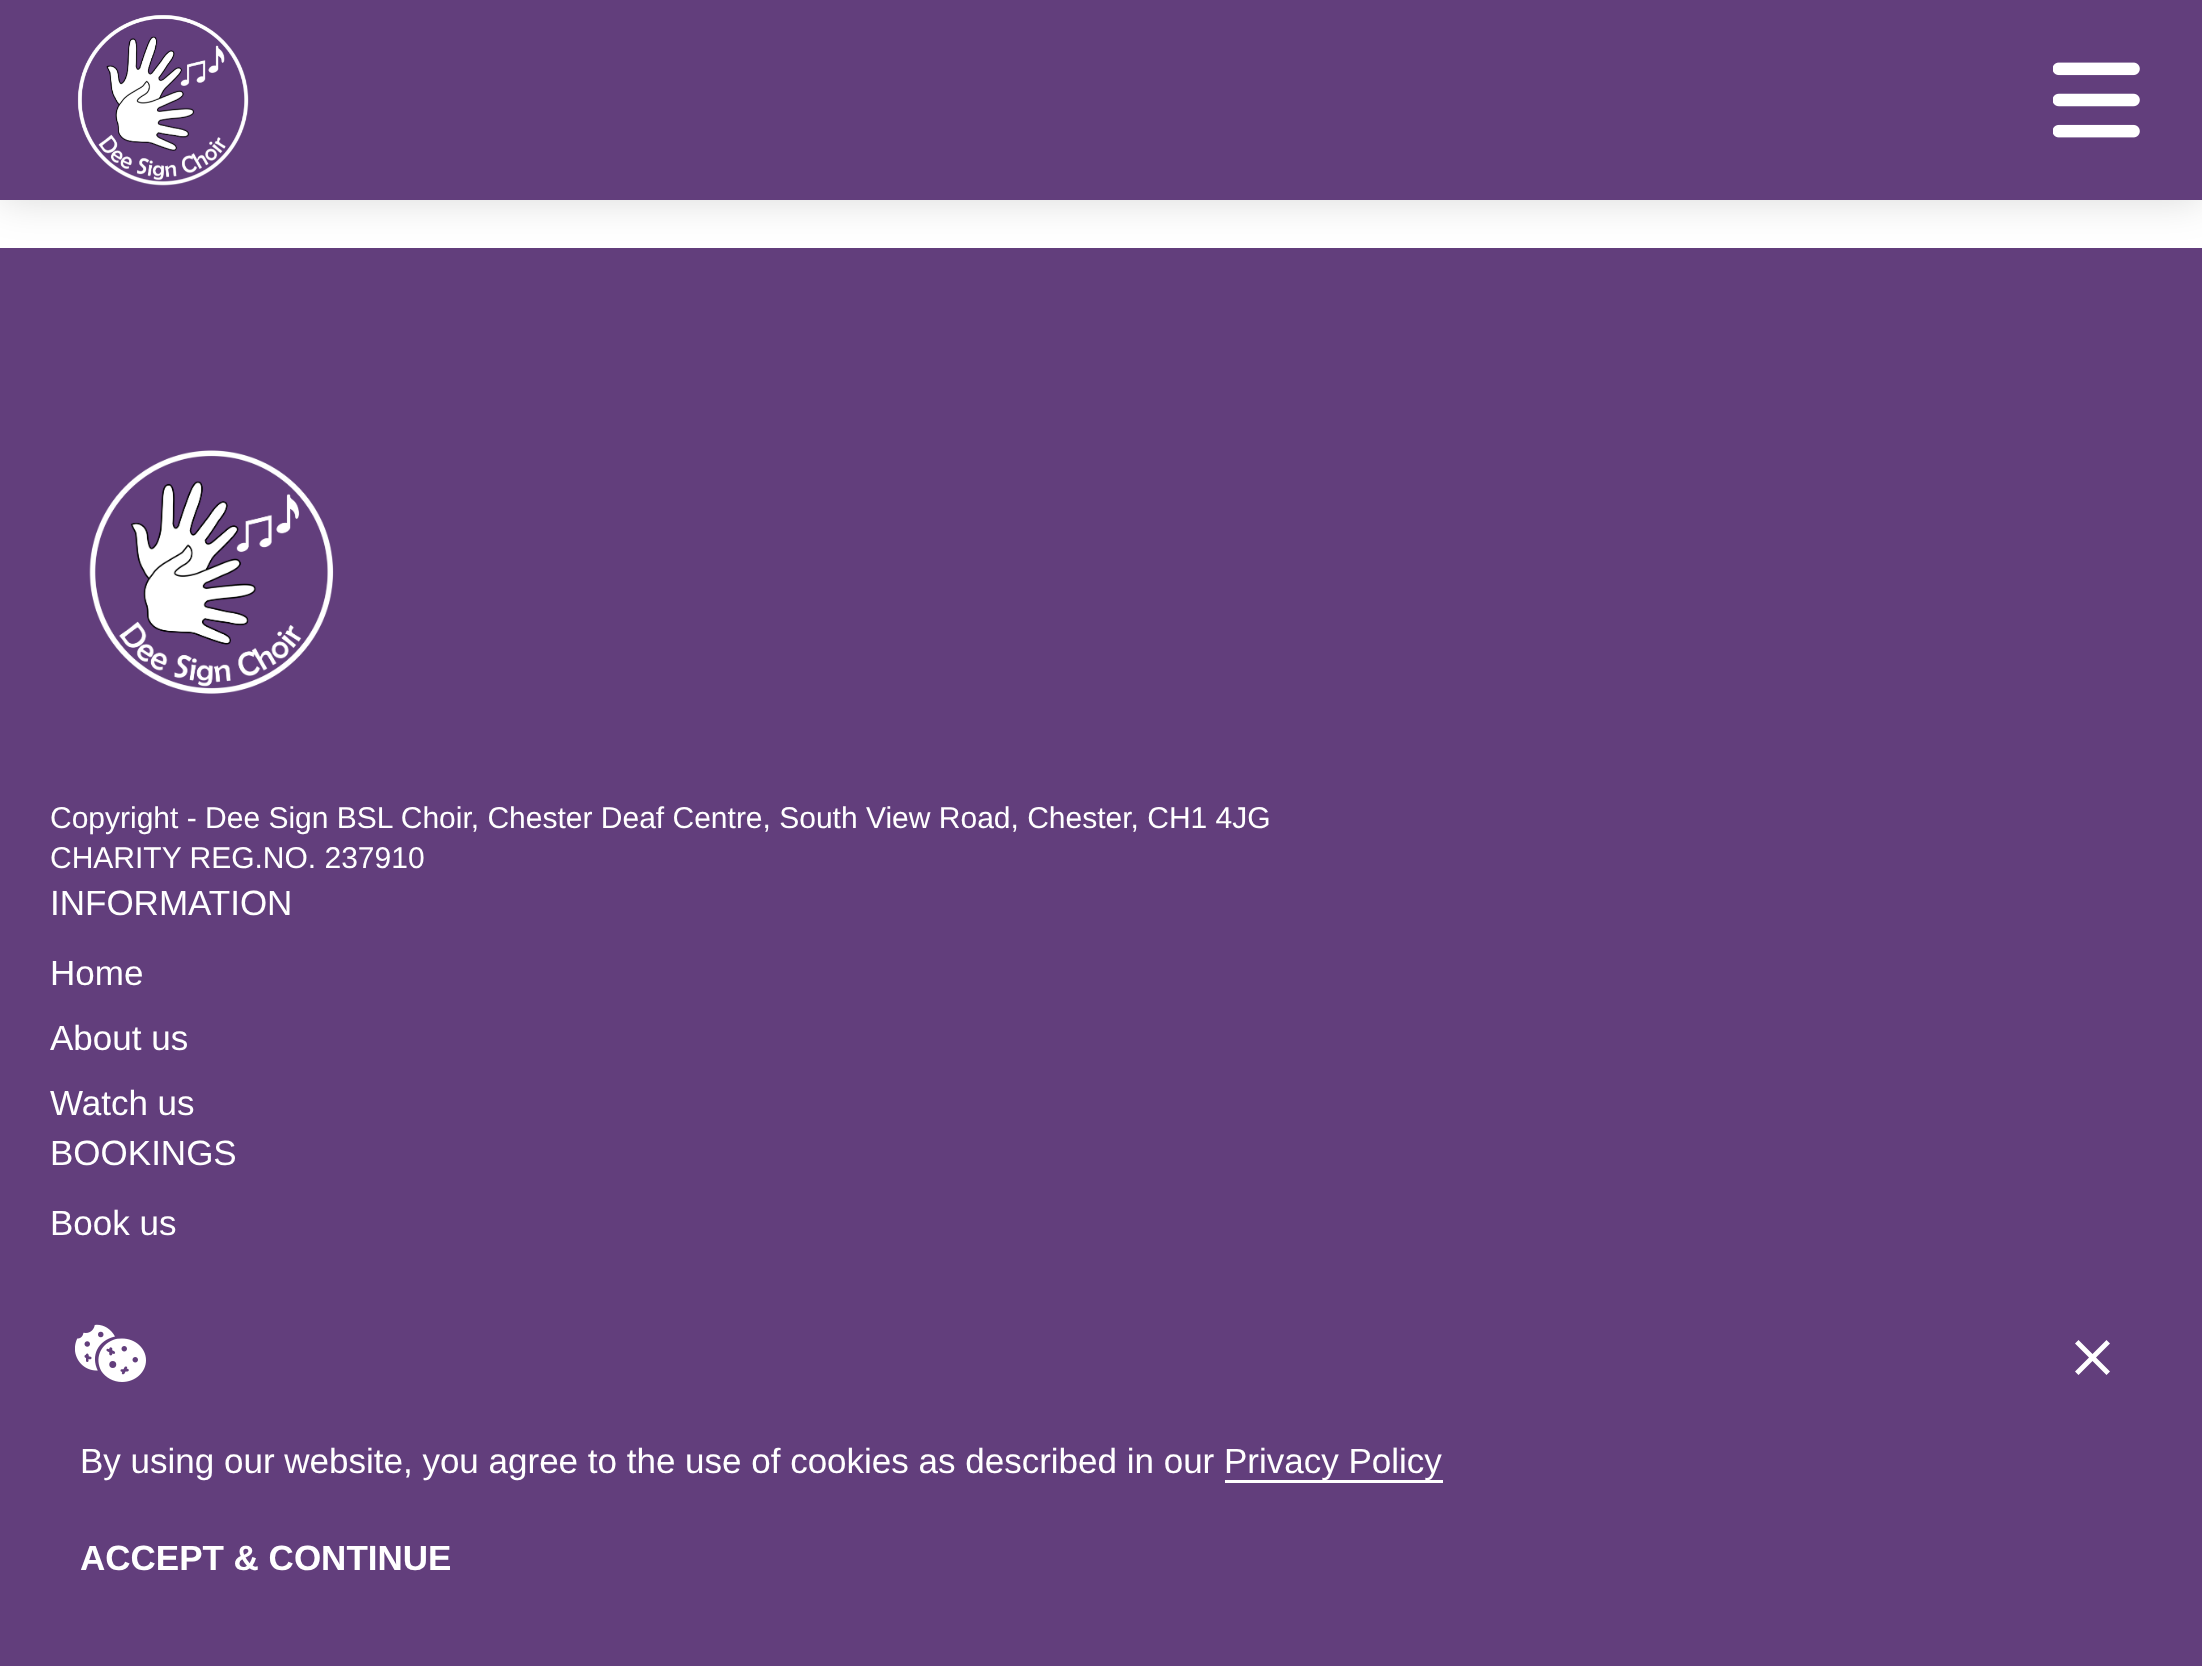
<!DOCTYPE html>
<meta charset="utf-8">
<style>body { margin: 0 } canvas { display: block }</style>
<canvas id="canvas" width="2202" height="1666"></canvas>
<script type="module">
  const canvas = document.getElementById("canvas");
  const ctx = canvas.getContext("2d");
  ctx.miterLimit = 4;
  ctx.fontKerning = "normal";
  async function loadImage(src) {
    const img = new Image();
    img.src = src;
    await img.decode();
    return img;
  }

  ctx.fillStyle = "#ffffff";
  ctx.fillRect(0, 0, 2202, 1666);
  ctx.fillStyle = "#623e7c";
  ctx.fillRect(0, 248, 2202, 1418);
  ctx.fillStyle = "rgba(0, 0, 0, 0.15)";
  ctx.filter = "blur(20px)";
  ctx.beginPath();
  ctx.rect(0, 0, 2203, 200);
  ctx.fill();
  ctx.filter = "none";
  ctx.fillStyle = "#623e7c";
  ctx.fillRect(0, 0, 2202, 200);
  ctx.drawImage(await loadImage("img1.png"), 77, 15, 172, 171);
  ctx.drawImage(await loadImage("img2.png"), 2053, 62, 87, 76);
  ctx.drawImage(await loadImage("img3.png"), 89, 450, 245, 244);
  ctx.font = "30px Liberation Sans";
  ctx.fillStyle = "#ffffff";
  ctx.fillText("Copyright - Dee Sign BSL Choir, Chester Deaf Centre, South View Road, Chester, CH1 4JG", 50, 828);
  ctx.fillText("CHARITY REG.NO. 237910", 50, 868);
  ctx.font = "35px Liberation Sans";
  ctx.fillText("INFORMATION", 50, 915);
  ctx.fillText("Home", 50, 985);
  ctx.fillText("About us", 50, 1050);
  ctx.fillText("Watch us", 50, 1115);
  ctx.fillText("BOOKINGS", 50, 1165);
  ctx.fillText("Book us", 50, 1235);
  ctx.drawImage(await loadImage("img4.png"), 75, 1324, 71, 58);
  ctx.beginPath();
  ctx.moveTo(2110, 1343.5);
  ctx.lineTo(2106.5, 1340);
  ctx.lineTo(2092.5, 1354);
  ctx.lineTo(2078.5, 1340);
  ctx.lineTo(2075, 1343.5);
  ctx.lineTo(2089, 1357.5);
  ctx.lineTo(2075, 1371.5);
  ctx.lineTo(2078.5, 1375);
  ctx.lineTo(2092.5, 1361);
  ctx.lineTo(2106.5, 1375);
  ctx.lineTo(2110, 1371.5);
  ctx.lineTo(2096, 1357.5);
  ctx.closePath();
  ctx.fill();
  ctx.fillText("By using our website, you agree to the use of cookies as described in our", 80, 1473);
  ctx.fillRect(1225, 1480, 218, 3);
  ctx.fillText("Privacy Policy", 1224, 1473);
  ctx.font = "bold 35px Liberation Sans";
  ctx.fillText("ACCEPT & CONTINUE", 80, 1570);
</script>
